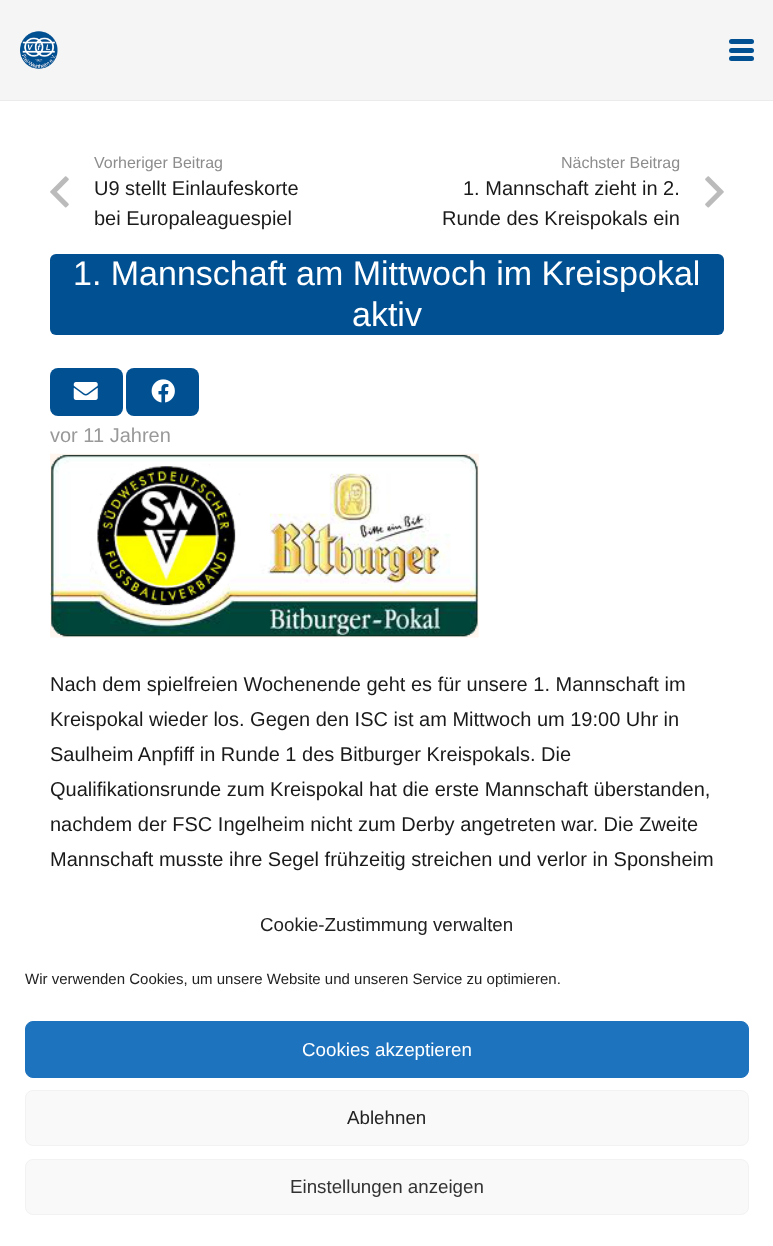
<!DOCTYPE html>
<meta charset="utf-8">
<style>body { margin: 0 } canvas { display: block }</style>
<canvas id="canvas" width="773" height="1246"></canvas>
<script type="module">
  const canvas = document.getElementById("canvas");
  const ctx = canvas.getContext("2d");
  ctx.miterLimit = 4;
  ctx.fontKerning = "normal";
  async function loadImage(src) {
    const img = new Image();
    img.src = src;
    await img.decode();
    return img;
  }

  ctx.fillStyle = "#ffffff";
  ctx.fillRect(0, 0, 773, 1246);
  ctx.fillStyle = "#ebebeb";
  ctx.beginPath();
  ctx.moveTo(0, 100);
  ctx.lineTo(0, 101);
  ctx.lineTo(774, 101);
  ctx.lineTo(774, 1);
  ctx.lineTo(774, 100);
  ctx.closePath();
  ctx.fill();
  ctx.fillStyle = "#f5f5f5";
  ctx.fillRect(0, 0, 773, 100);
  ctx.drawImage(await loadImage("img1.png"), 20, 31, 38, 38);
  ctx.fillStyle = "#015092";
  ctx.beginPath();
  ctx.roundRect(729, 48, 25, 5, 2.5);
  ctx.fill();
  ctx.beginPath();
  ctx.roundRect(729, 39, 25, 5, 2.5);
  ctx.fill();
  ctx.beginPath();
  ctx.roundRect(729, 56, 25, 5, 2.5);
  ctx.fill();
  ctx.font = "16px Liberation Sans";
  ctx.fillStyle = "#8d8d8d";
  ctx.fillText("Vorheriger Beitrag", 94, 168);
  ctx.drawImage(await loadImage("img2.png"), 50, 176, 19, 32);
  ctx.font = "20px Liberation Sans";
  ctx.fillStyle = "#1a1a1a";
  ctx.fillText("U9 stellt Einlaufeskorte", 94, 195);
  ctx.fillText("bei Europaleaguespiel", 94, 225);
  ctx.font = "16px Liberation Sans";
  ctx.fillStyle = "#8d8d8d";
  ctx.fillText("Nächster Beitrag", 561, 168);
  ctx.font = "20px Liberation Sans";
  ctx.fillStyle = "#1a1a1a";
  ctx.fillText("1. Mannschaft zieht in 2.", 463, 195);
  ctx.fillText("Runde des Kreispokals ein", 442, 225);
  ctx.drawImage(await loadImage("img3.png"), 705, 176, 19, 32);
  ctx.fillStyle = "#015092";
  ctx.beginPath();
  ctx.roundRect(50, 254, 674, 81, 6);
  ctx.fill();
  ctx.font = "34px Liberation Sans";
  ctx.fillStyle = "#ffffff";
  ctx.fillText("1. Mannschaft am Mittwoch im Kreispokal", 73, 285);
  ctx.fillText("aktiv", 352, 326);
  ctx.fillStyle = "#015092";
  ctx.beginPath();
  ctx.roundRect(50, 368, 73, 48, 8);
  ctx.fill();
  ctx.drawImage(await loadImage("img4.png"), 73, 382, 25, 18);
  ctx.beginPath();
  ctx.roundRect(126, 368, 73, 48, 8);
  ctx.fill();
  ctx.drawImage(await loadImage("img5.png"), 151, 379, 24, 24);
  ctx.font = "20px Liberation Sans";
  ctx.fillStyle = "#999999";
  ctx.fillText("vor 11 Jahren", 50, 442);
  ctx.drawImage(await loadImage("img6.png"), 50, 453, 429, 185);
  ctx.fillStyle = "#1a1a1a";
  ctx.fillText("Nach dem spielfreien Wochenende geht es für unsere 1. Mannschaft im", 50, 691);
  ctx.fillText("Kreispokal wieder los. Gegen den ISC ist am Mittwoch um 19:00 Uhr in", 50, 726);
  ctx.fillText("Saulheim Anpfiff in Runde 1 des Bitburger Kreispokals. Die", 50, 761);
  ctx.fillText("Qualifikationsrunde zum Kreispokal hat die erste Mannschaft überstanden,", 50, 796);
  ctx.fillText("nachdem der FSC Ingelheim nicht zum Derby angetreten war. Die Zweite", 50, 831);
  ctx.fillText("Mannschaft musste ihre Segel frühzeitig streichen und verlor in Sponsheim", 50, 866);
  ctx.font = "18.75px Liberation Sans";
  ctx.fillStyle = "#222222";
  ctx.fillText("Cookie-Zustimmung verwalten", 260, 931);
  ctx.font = "15px Liberation Sans";
  ctx.fillText("Wir verwenden Cookies, um unsere Website und unseren Service zu optimieren.", 25, 984);
  ctx.fillStyle = "#1e73be";
  ctx.beginPath();
  ctx.roundRect(25.5, 1021.5, 723, 56, 7.5);
  ctx.fill();
  ctx.strokeStyle = "#1e73be";
  ctx.stroke();
  ctx.font = "18.75px Liberation Sans";
  ctx.fillStyle = "#ffffff";
  ctx.fillText("Cookies akzeptieren", 302, 1056);
  ctx.fillStyle = "#f9f9f9";
  ctx.beginPath();
  ctx.roundRect(25.5, 1090.5, 723, 55, 7.5);
  ctx.fill();
  ctx.strokeStyle = "#f2f2f2";
  ctx.stroke();
  ctx.fillStyle = "#222222";
  ctx.fillText("Ablehnen", 347, 1124);
  ctx.fillStyle = "#f9f9f9";
  ctx.beginPath();
  ctx.roundRect(25.5, 1159.5, 723, 55, 7.5);
  ctx.fill();
  ctx.stroke();
  ctx.fillStyle = "#333333";
  ctx.fillText("Einstellungen anzeigen", 290, 1193);
</script>
